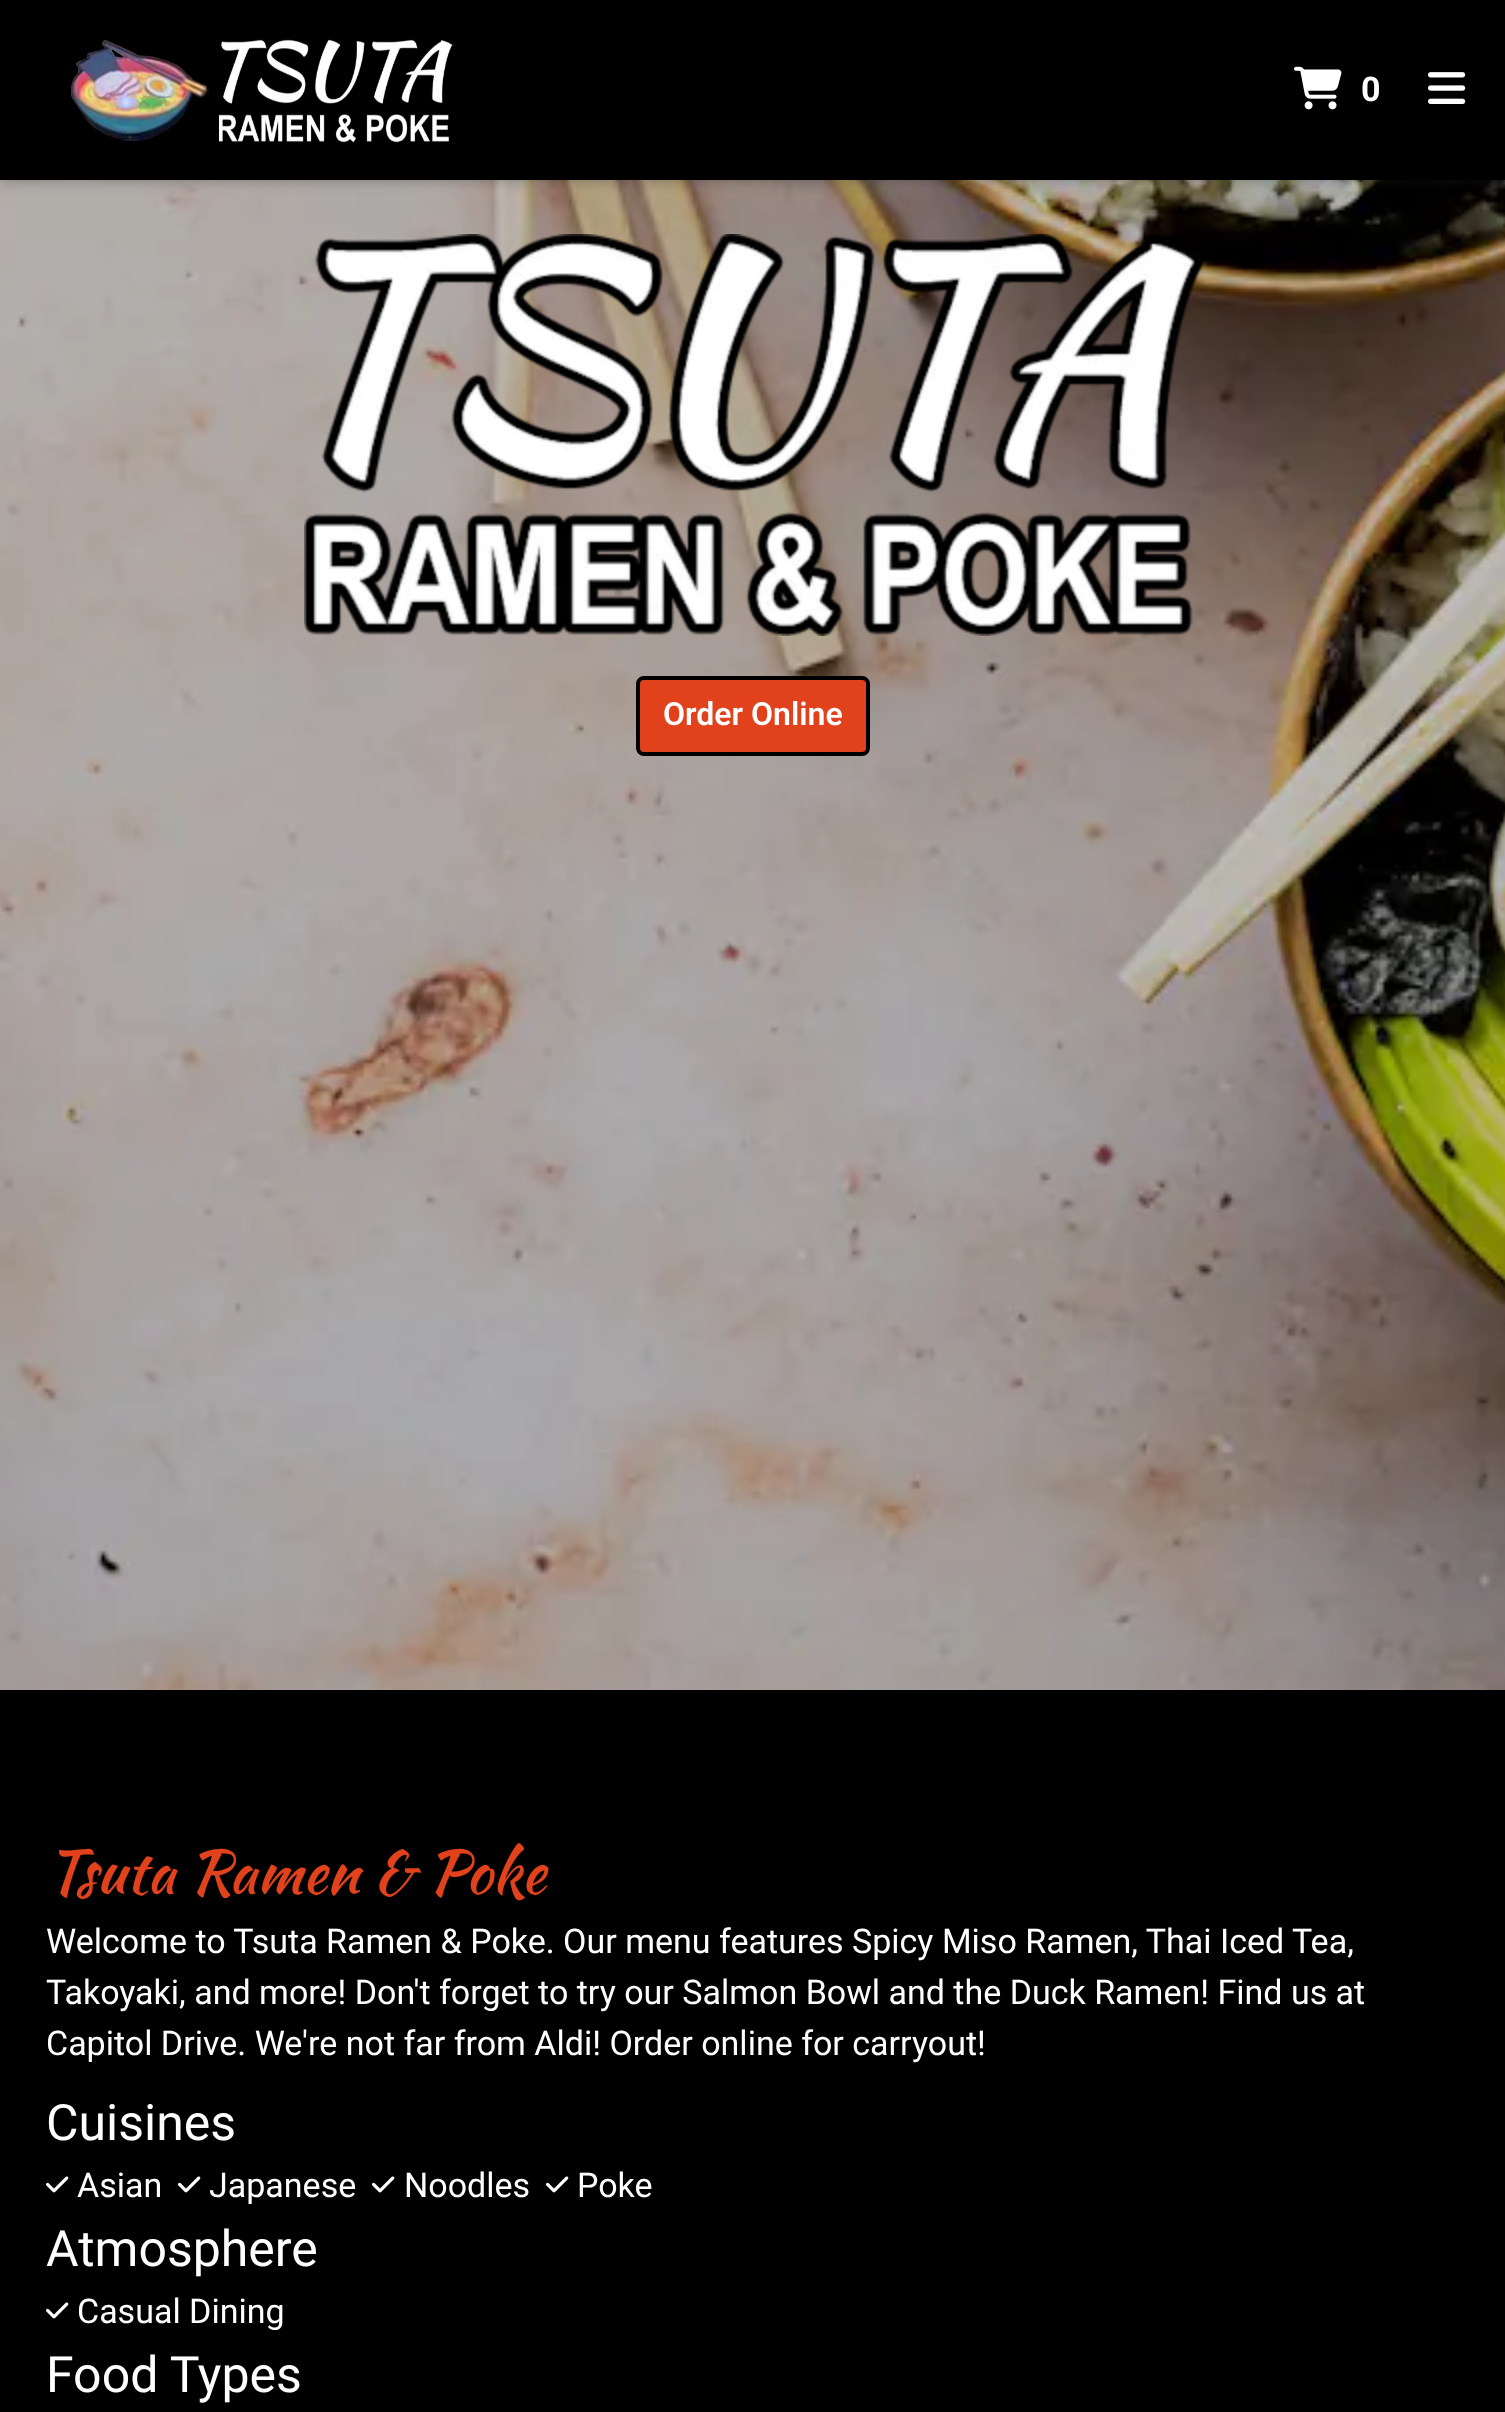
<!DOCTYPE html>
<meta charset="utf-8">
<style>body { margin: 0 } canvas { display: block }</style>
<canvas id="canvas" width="1505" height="2412"></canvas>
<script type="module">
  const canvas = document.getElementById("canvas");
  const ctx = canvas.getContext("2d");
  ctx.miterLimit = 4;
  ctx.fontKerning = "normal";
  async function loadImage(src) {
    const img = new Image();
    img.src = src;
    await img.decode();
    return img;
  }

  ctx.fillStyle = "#000000";
  ctx.fillRect(0, 0, 1505, 2412);
  ctx.drawImage(await loadImage("img4.png"), 0, 180, 1505, 1510);
  ctx.fillStyle = "rgba(32, 33, 36, 0.28)";
  ctx.filter = "blur(6px)";
  ctx.beginPath();
  ctx.rect(0, 2, 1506, 180);
  ctx.fill();
  ctx.filter = "none";
  ctx.fillStyle = "#000000";
  ctx.fillRect(0, 0, 1505, 180);
  ctx.drawImage(await loadImage("img1.png"), 71, 39, 383, 104);
  ctx.drawImage(await loadImage("img2.png"), 1294, 66, 48, 44);
  ctx.font = "bold 34px Roboto";
  ctx.fillStyle = "#ffffff";
  ctx.fillText("0", 1361, 101);
  ctx.drawImage(await loadImage("img3.png"), 1428, 72, 38, 32);
  ctx.drawImage(await loadImage("img5.png"), 304, 234, 900, 402);
  ctx.fillStyle = "#e1411b";
  ctx.beginPath();
  ctx.roundRect(638, 678, 230, 76, 6);
  ctx.fill();
  ctx.strokeStyle = "#000000";
  ctx.lineWidth = 4;
  ctx.stroke();
  ctx.font = "600 32px Roboto";
  ctx.fillStyle = "#ffffff";
  ctx.fillText("Order Online", 663, 725);
  ctx.font = "60px Kaushan Script";
  ctx.fillStyle = "#e1411b";
  ctx.fillText("Tsuta Ramen & Poke", 46, 1893);
  ctx.font = "34px Roboto";
  ctx.fillStyle = "#ffffff";
  ctx.fillText("Welcome to Tsuta Ramen & Poke. Our menu features Spicy Miso Ramen, Thai Iced Tea,", 46, 1953);
  ctx.fillText("Takoyaki, and more! Don't forget to try our Salmon Bowl and the Duck Ramen! Find us at", 46, 2004);
  ctx.fillText("Capitol Drive. We're not far from Aldi! Order online for carryout!", 46, 2055);
  ctx.font = "50px Roboto";
  ctx.fillText("Cuisines", 46, 2140);
  ctx.drawImage(await loadImage("img6.png"), 46, 2176, 23, 17);
  ctx.font = "34px Roboto";
  ctx.fillText("Asian", 77, 2197);
  ctx.drawImage(await loadImage("img6.png"), 178, 2176, 23, 17);
  ctx.fillText("Japanese", 209, 2197);
  ctx.drawImage(await loadImage("img6.png"), 372, 2176, 23, 17);
  ctx.fillText("Noodles", 404, 2197);
  ctx.drawImage(await loadImage("img6.png"), 546, 2176, 23, 17);
  ctx.fillText("Poke", 577, 2197);
  ctx.font = "50px Roboto";
  ctx.fillText("Atmosphere", 46, 2266);
  ctx.drawImage(await loadImage("img6.png"), 46, 2302, 23, 17);
  ctx.font = "34px Roboto";
  ctx.fillText("Casual Dining", 77, 2323);
  ctx.font = "50px Roboto";
  ctx.fillText("Food Types", 46, 2392);
</script>
